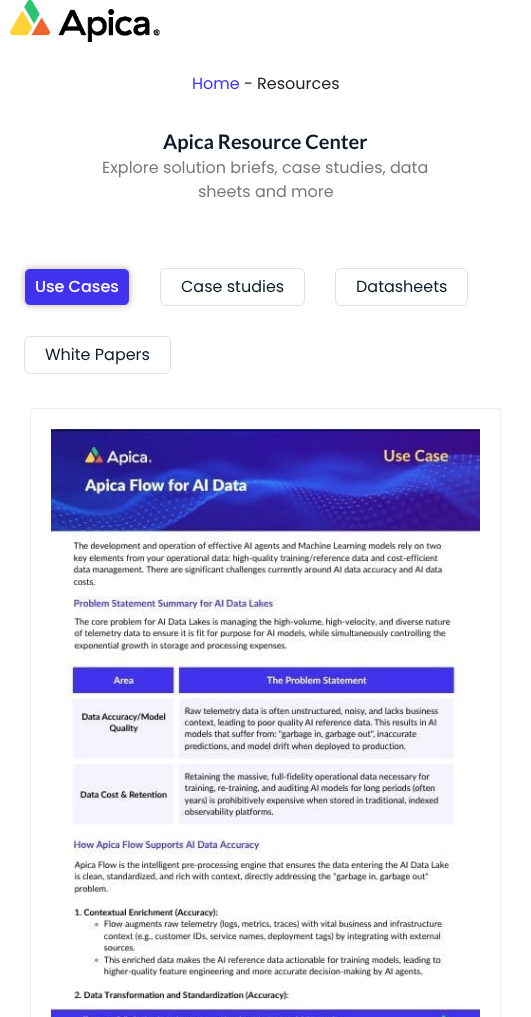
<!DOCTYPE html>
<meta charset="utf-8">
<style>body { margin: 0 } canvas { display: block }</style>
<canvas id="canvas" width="531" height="1017"></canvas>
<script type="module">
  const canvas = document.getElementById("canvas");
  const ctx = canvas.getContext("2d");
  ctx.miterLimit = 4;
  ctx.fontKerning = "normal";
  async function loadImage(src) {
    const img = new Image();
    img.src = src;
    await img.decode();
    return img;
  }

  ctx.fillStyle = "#ffffff";
  ctx.fillRect(0, 0, 531, 1017);
  ctx.drawImage(await loadImage("img1.png"), 10, 0, 150, 42);
  ctx.font = "16px Poppins";
  ctx.fillStyle = "#4132ee";
  ctx.fillText("Home", 192, 89);
  ctx.fillStyle = "#222222";
  ctx.fillText("- Resources", 244, 89);
  ctx.font = "bold 20px Lato";
  ctx.fillStyle = "#0f1c2a";
  ctx.fillText("Apica Resource Center", 163, 149);
  ctx.font = "16px Poppins";
  ctx.fillStyle = "#7a7a7a";
  ctx.fillText("Explore solution briefs, case studies, data", 102, 173);
  ctx.fillText("sheets and more", 198, 197);
  ctx.fillStyle = "rgba(123, 55, 55, 0.34)";
  ctx.filter = "blur(3px)";
  ctx.beginPath();
  ctx.roundRect(24, 268, 106, 38, 6);
  ctx.fill();
  ctx.filter = "none";
  ctx.fillStyle = "#4132ee";
  ctx.beginPath();
  ctx.roundRect(24.5, 268.5, 105, 37, 5.5);
  ctx.fill();
  ctx.strokeStyle = "#e1e1e1";
  ctx.stroke();
  ctx.font = "500 16px Poppins";
  ctx.fillStyle = "#ffffff";
  ctx.fillText("Use Cases", 35, 292);
  ctx.beginPath();
  ctx.roundRect(160.5, 268.5, 144, 37, 5.5);
  ctx.stroke();
  ctx.font = "16px Poppins";
  ctx.fillStyle = "#0f1c2a";
  ctx.fillText("Case studies", 181, 292);
  ctx.beginPath();
  ctx.roundRect(335.5, 268.5, 132, 37, 5.5);
  ctx.stroke();
  ctx.fillText("Datasheets", 356, 292);
  ctx.beginPath();
  ctx.roundRect(24.5, 336.5, 146, 37, 5.5);
  ctx.stroke();
  ctx.fillText("White Papers", 45, 360);
  ctx.strokeStyle = "#efefef";
  ctx.strokeRect(30.5, 408.5, 470, 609);
  ctx.drawImage(await loadImage("img2.png"), 51, 429, 429, 588);
</script>
